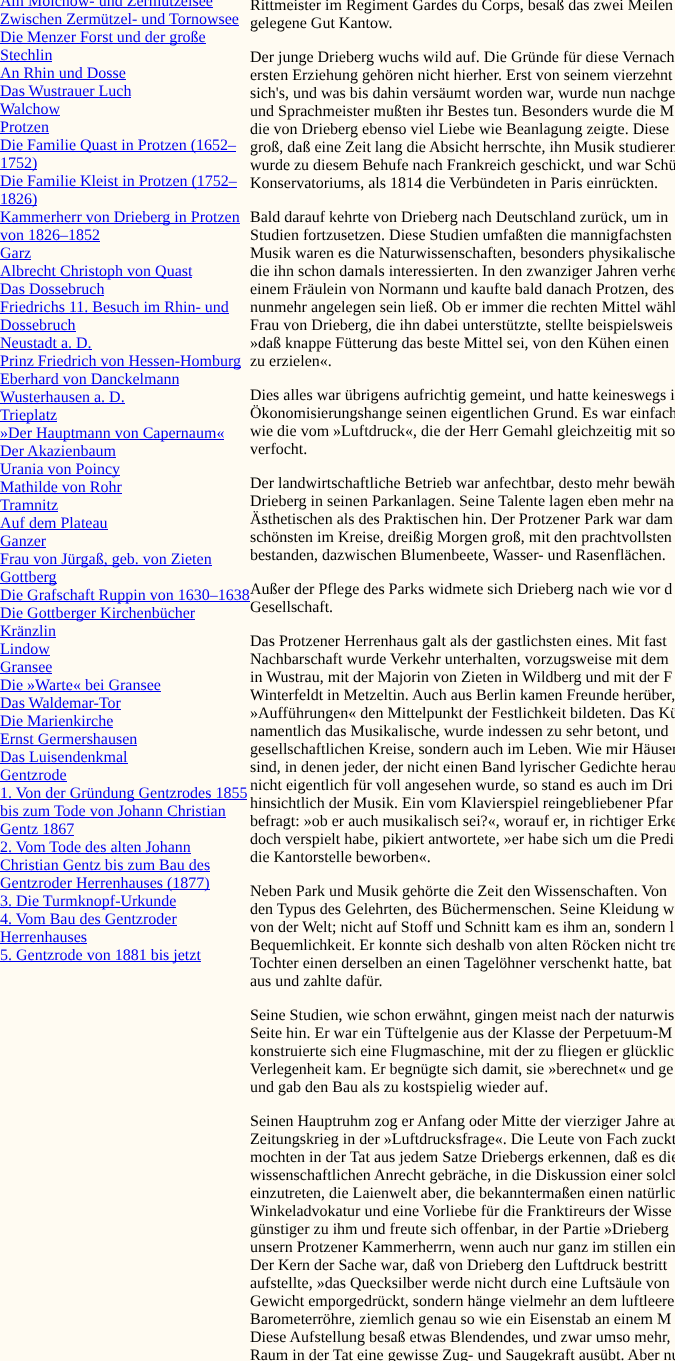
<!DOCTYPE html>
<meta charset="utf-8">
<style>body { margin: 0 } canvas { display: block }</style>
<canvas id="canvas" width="675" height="1361"></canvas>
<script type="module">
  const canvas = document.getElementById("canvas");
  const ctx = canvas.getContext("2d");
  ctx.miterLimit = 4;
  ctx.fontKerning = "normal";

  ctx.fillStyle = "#fffbf2";
  ctx.fillRect(0, 0, 675, 1361);
  ctx.font = "16px Liberation Serif";
  ctx.fillStyle = "#0000ee";
  ctx.fillText("Am Molchow- und Zermützelsee", 0, 6);
  ctx.fillRect(0, 7, 213, 1);
  ctx.fillText("Zwischen Zermützel- und Tornowsee", 0, 24);
  ctx.fillRect(0, 25, 239, 1);
  ctx.fillRect(0, 43, 206, 1);
  ctx.fillText("Die Menzer Forst und der große", 0, 42);
  ctx.fillText("Stechlin", 0, 60);
  ctx.fillRect(0, 61, 52, 1);
  ctx.fillText("An Rhin und Dosse", 0, 78);
  ctx.fillRect(0, 79, 126, 1);
  ctx.fillText("Das Wustrauer Luch", 0, 96);
  ctx.fillRect(0, 97, 131, 1);
  ctx.fillText("Walchow", 0, 114);
  ctx.fillRect(0, 115, 60, 1);
  ctx.fillText("Protzen", 0, 132);
  ctx.fillRect(0, 133, 49, 1);
  ctx.fillRect(0, 151, 236, 1);
  ctx.fillText("Die Familie Quast in Protzen (1652–", 0, 150);
  ctx.fillRect(0, 169, 37, 1);
  ctx.fillText("1752)", 0, 168);
  ctx.fillRect(0, 187, 237, 1);
  ctx.fillText("Die Familie Kleist in Protzen (1752–", 0, 186);
  ctx.fillRect(0, 205, 37, 1);
  ctx.fillText("1826)", 0, 204);
  ctx.fillRect(0, 223, 240, 1);
  ctx.fillText("Kammerherr von Drieberg in Protzen", 0, 222);
  ctx.fillText("von 1826–1852", 0, 240);
  ctx.fillRect(0, 241, 100, 1);
  ctx.fillText("Garz", 0, 258);
  ctx.fillRect(0, 259, 31, 1);
  ctx.fillRect(0, 277, 192, 1);
  ctx.fillText("Albrecht Christoph von Quast", 0, 276);
  ctx.fillText("Das Dossebruch", 0, 294);
  ctx.fillRect(0, 295, 104, 1);
  ctx.fillText("Friedrichs 11. Besuch im Rhin- und", 0, 312);
  ctx.fillRect(0, 313, 229, 1);
  ctx.fillText("Dossebruch", 0, 330);
  ctx.fillRect(0, 331, 76, 1);
  ctx.fillText("Neustadt a. D.", 0, 348);
  ctx.fillRect(0, 349, 92, 1);
  ctx.fillRect(0, 367, 241, 1);
  ctx.fillText("Prinz Friedrich von Hessen-Homburg", 0, 366);
  ctx.fillText("Eberhard von Danckelmann", 0, 384);
  ctx.fillRect(0, 385, 179, 1);
  ctx.fillText("Wusterhausen a. D.", 0, 402);
  ctx.fillRect(0, 403, 125, 1);
  ctx.fillRect(0, 421, 57, 1);
  ctx.fillText("Trieplatz", 0, 420);
  ctx.fillRect(0, 439, 224, 1);
  ctx.fillText("»Der Hauptmann von Capernaum«", 0, 438);
  ctx.fillText("Der Akazienbaum", 0, 456);
  ctx.fillRect(0, 457, 116, 1);
  ctx.fillRect(0, 475, 120, 1);
  ctx.fillText("Urania von Poincy", 0, 474);
  ctx.fillText("Mathilde von Rohr", 0, 492);
  ctx.fillRect(0, 493, 122, 1);
  ctx.fillText("Tramnitz", 0, 510);
  ctx.fillRect(0, 511, 58, 1);
  ctx.fillText("Auf dem Plateau", 0, 528);
  ctx.fillRect(0, 529, 108, 1);
  ctx.fillText("Ganzer", 0, 546);
  ctx.fillRect(0, 547, 46, 1);
  ctx.fillRect(0, 565, 212, 1);
  ctx.fillText("Frau von Jürgaß, geb. von Zieten", 0, 564);
  ctx.fillRect(0, 583, 57, 1);
  ctx.fillText("Gottberg", 0, 582);
  ctx.fillRect(0, 601, 250, 1);
  ctx.fillText("Die Grafschaft Ruppin von 1630–1638", 0, 600);
  ctx.fillRect(0, 619, 195, 1);
  ctx.fillText("Die Gottberger Kirchenbücher", 0, 618);
  ctx.fillText("Kränzlin", 0, 636);
  ctx.fillRect(0, 637, 56, 1);
  ctx.fillText("Lindow", 0, 654);
  ctx.fillRect(0, 655, 50, 1);
  ctx.fillText("Gransee", 0, 672);
  ctx.fillRect(0, 673, 52, 1);
  ctx.fillText("Die »Warte« bei Gransee", 0, 690);
  ctx.fillRect(0, 691, 161, 1);
  ctx.fillText("Das Waldemar-Tor", 0, 708);
  ctx.fillRect(0, 709, 121, 1);
  ctx.fillText("Die Marienkirche", 0, 726);
  ctx.fillRect(0, 727, 113, 1);
  ctx.fillText("Ernst Germershausen", 0, 744);
  ctx.fillRect(0, 745, 137, 1);
  ctx.fillText("Das Luisendenkmal", 0, 762);
  ctx.fillRect(0, 763, 128, 1);
  ctx.fillText("Gentzrode", 0, 780);
  ctx.fillRect(0, 781, 67, 1);
  ctx.fillRect(0, 799, 247, 1);
  ctx.fillText("1. Von der Gründung Gentzrodes 1855", 0, 798);
  ctx.fillText("bis zum Tode von Johann Christian", 0, 816);
  ctx.fillRect(0, 817, 226, 1);
  ctx.fillText("Gentz 1867", 0, 834);
  ctx.fillRect(0, 835, 74, 1);
  ctx.fillText("2. Vom Tode des alten Johann", 0, 852);
  ctx.fillRect(0, 853, 191, 1);
  ctx.fillText("Christian Gentz bis zum Bau des", 0, 870);
  ctx.fillRect(0, 871, 210, 1);
  ctx.fillRect(0, 889, 210, 1);
  ctx.fillText("Gentzroder Herrenhauses (1877)", 0, 888);
  ctx.fillRect(0, 907, 176, 1);
  ctx.fillText("3. Die Turmknopf-Urkunde", 0, 906);
  ctx.fillText("4. Vom Bau des Gentzroder", 0, 924);
  ctx.fillRect(0, 925, 177, 1);
  ctx.fillText("Herrenhauses", 0, 942);
  ctx.fillRect(0, 943, 87, 1);
  ctx.fillRect(0, 961, 201, 1);
  ctx.fillText("5. Gentzrode von 1881 bis jetzt", 0, 960);
  ctx.fillStyle = "#000000";
  ctx.fillText("Rittmeister im Regiment Gardes du Corps, besaß das zwei Meilen", 250, 10);
  ctx.fillText("gelegene Gut Kantow.", 250, 28);
  ctx.fillText("Der junge Drieberg wuchs wild auf. Die Gründe für diese Vernach", 250, 62);
  ctx.fillText("ersten Erziehung gehören nicht hierher. Erst von seinem vierzehnt", 250, 80);
  ctx.fillText("sich's, und was bis dahin versäumt worden war, wurde nun nachge", 250, 98);
  ctx.fillText("und Sprachmeister mußten ihr Bestes tun. Besonders wurde die M", 250, 116);
  ctx.fillText("die von Drieberg ebenso viel Liebe wie Beanlagung zeigte. Diese", 250, 134);
  ctx.fillText("groß, daß eine Zeit lang die Absicht herrschte, ihn Musik studieren", 250, 152);
  ctx.fillText("wurde zu diesem Behufe nach Frankreich geschickt, und war Schü", 250, 170);
  ctx.fillText("Konservatoriums, als 1814 die Verbündeten in Paris einrückten.", 250, 188);
  ctx.fillText("Bald darauf kehrte von Drieberg nach Deutschland zurück, um in", 250, 222);
  ctx.fillText("Studien fortzusetzen. Diese Studien umfaßten die mannigfachsten", 250, 240);
  ctx.fillText("Musik waren es die Naturwissenschaften, besonders physikalische", 250, 258);
  ctx.fillText("die ihn schon damals interessierten. In den zwanziger Jahren verhe", 250, 276);
  ctx.fillText("einem Fräulein von Normann und kaufte bald danach Protzen, des", 250, 294);
  ctx.fillText("nunmehr angelegen sein ließ. Ob er immer die rechten Mittel wähl", 250, 312);
  ctx.fillText("Frau von Drieberg, die ihn dabei unterstützte, stellte beispielsweis", 250, 330);
  ctx.fillText("»daß knappe Fütterung das beste Mittel sei, von den Kühen einen", 250, 348);
  ctx.fillText("zu erzielen«.", 250, 366);
  ctx.fillText("Dies alles war übrigens aufrichtig gemeint, und hatte keineswegs i", 250, 400);
  ctx.fillText("Ökonomisierungshange seinen eigentlichen Grund. Es war einfach", 250, 418);
  ctx.fillText("wie die vom »Luftdruck«, die der Herr Gemahl gleichzeitig mit so", 250, 436);
  ctx.fillText("verfocht.", 250, 454);
  ctx.fillText("Der landwirtschaftliche Betrieb war anfechtbar, desto mehr bewäh", 250, 488);
  ctx.fillText("Drieberg in seinen Parkanlagen. Seine Talente lagen eben mehr na", 250, 506);
  ctx.fillText("Ästhetischen als des Praktischen hin. Der Protzener Park war dam", 250, 524);
  ctx.fillText("schönsten im Kreise, dreißig Morgen groß, mit den prachtvollsten", 250, 542);
  ctx.fillText("bestanden, dazwischen Blumenbeete, Wasser- und Rasenflächen.", 250, 560);
  ctx.fillText("Außer der Pflege des Parks widmete sich Drieberg nach wie vor d", 250, 594);
  ctx.fillText("Gesellschaft.", 250, 612);
  ctx.fillText("Das Protzener Herrenhaus galt als der gastlichsten eines. Mit fast", 250, 646);
  ctx.fillText("Nachbarschaft wurde Verkehr unterhalten, vorzugsweise mit dem", 250, 664);
  ctx.fillText("in Wustrau, mit der Majorin von Zieten in Wildberg und mit der F", 250, 682);
  ctx.fillText("Winterfeldt in Metzeltin. Auch aus Berlin kamen Freunde herüber,", 250, 700);
  ctx.fillText("»Aufführungen« den Mittelpunkt der Festlichkeit bildeten. Das Kü", 250, 718);
  ctx.fillText("namentlich das Musikalische, wurde indessen zu sehr betont, und", 250, 736);
  ctx.fillText("gesellschaftlichen Kreise, sondern auch im Leben. Wie mir Häuser", 250, 754);
  ctx.fillText("sind, in denen jeder, der nicht einen Band lyrischer Gedichte herau", 250, 772);
  ctx.fillText("nicht eigentlich für voll angesehen wurde, so stand es auch im Dri", 250, 790);
  ctx.fillText("hinsichtlich der Musik. Ein vom Klavierspiel reingebliebener Pfar", 250, 808);
  ctx.fillText("befragt: »ob er auch musikalisch sei?«, worauf er, in richtiger Erke", 250, 826);
  ctx.fillText("doch verspielt habe, pikiert antwortete, »er habe sich um die Predi", 250, 844);
  ctx.fillText("die Kantorstelle beworben«.", 250, 862);
  ctx.fillText("Neben Park und Musik gehörte die Zeit den Wissenschaften. Von", 250, 896);
  ctx.fillText("den Typus des Gelehrten, des Büchermenschen. Seine Kleidung w", 250, 914);
  ctx.fillText("von der Welt; nicht auf Stoff und Schnitt kam es ihm an, sondern l", 250, 932);
  ctx.fillText("Bequemlichkeit. Er konnte sich deshalb von alten Röcken nicht tre", 250, 950);
  ctx.fillText("Tochter einen derselben an einen Tagelöhner verschenkt hatte, bat", 250, 968);
  ctx.fillText("aus und zahlte dafür.", 250, 986);
  ctx.fillText("Seine Studien, wie schon erwähnt, gingen meist nach der naturwis", 250, 1020);
  ctx.fillText("Seite hin. Er war ein Tüftelgenie aus der Klasse der Perpetuum-M", 250, 1038);
  ctx.fillText("konstruierte sich eine Flugmaschine, mit der zu fliegen er glücklic", 250, 1056);
  ctx.fillText("Verlegenheit kam. Er begnügte sich damit, sie »berechnet« und ge", 250, 1074);
  ctx.fillText("und gab den Bau als zu kostspielig wieder auf.", 250, 1092);
  ctx.fillText("Seinen Hauptruhm zog er Anfang oder Mitte der vierziger Jahre au", 250, 1126);
  ctx.fillText("Zeitungskrieg in der »Luftdrucksfrage«. Die Leute von Fach zuckt", 250, 1144);
  ctx.fillText("mochten in der Tat aus jedem Satze Driebergs erkennen, daß es die", 250, 1162);
  ctx.fillText("wissenschaftlichen Anrecht gebräche, in die Diskussion einer solch", 250, 1180);
  ctx.fillText("einzutreten, die Laienwelt aber, die bekanntermaßen einen natürlic", 250, 1198);
  ctx.fillText("Winkeladvokatur und eine Vorliebe für die Franktireurs der Wisse", 250, 1216);
  ctx.fillText("günstiger zu ihm und freute sich offenbar, in der Partie »Drieberg", 250, 1234);
  ctx.fillText("unsern Protzener Kammerherrn, wenn auch nur ganz im stillen ein", 250, 1252);
  ctx.fillText("Der Kern der Sache war, daß von Drieberg den Luftdruck bestritt", 250, 1270);
  ctx.fillText("aufstellte, »das Quecksilber werde nicht durch eine Luftsäule von", 250, 1288);
  ctx.fillText("Gewicht emporgedrückt, sondern hänge vielmehr an dem luftleere", 250, 1306);
  ctx.fillText("Barometerröhre, ziemlich genau so wie ein Eisenstab an einem M", 250, 1324);
  ctx.fillText("Diese Aufstellung besaß etwas Blendendes, und zwar umso mehr,", 250, 1342);
  ctx.fillText("Raum in der Tat eine gewisse Zug- und Saugekraft ausübt. Aber nu", 250, 1360);
</script>
